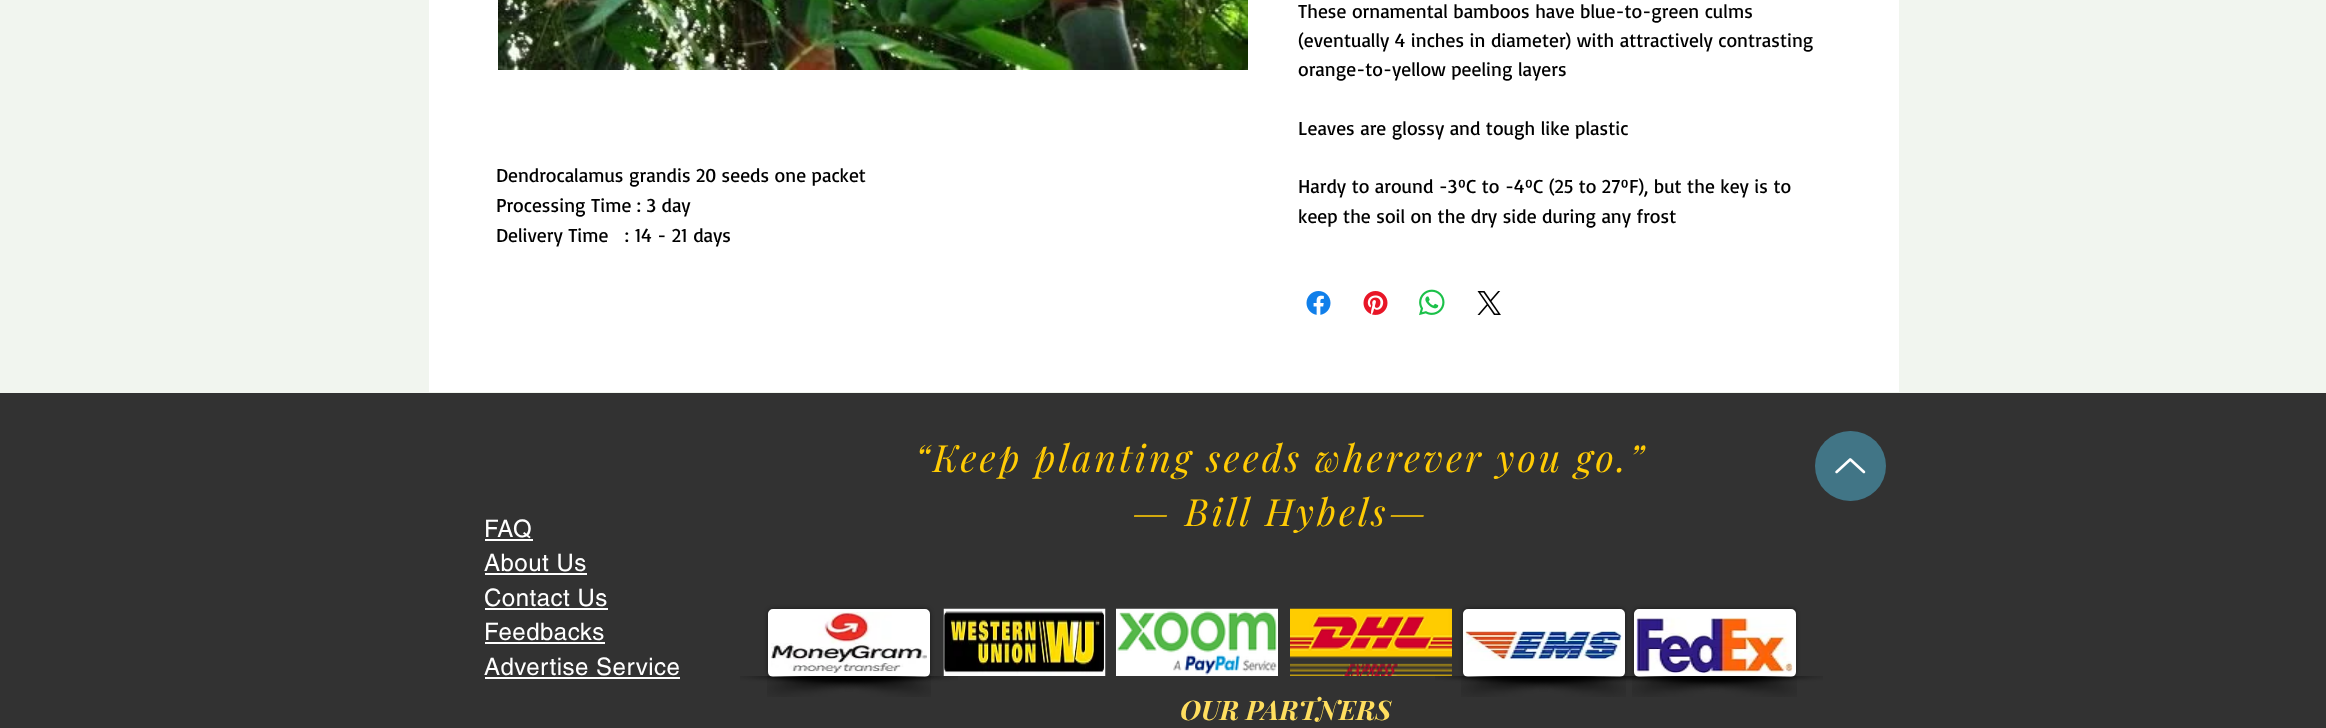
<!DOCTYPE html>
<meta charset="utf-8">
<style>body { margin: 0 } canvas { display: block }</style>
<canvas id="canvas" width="2326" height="728"></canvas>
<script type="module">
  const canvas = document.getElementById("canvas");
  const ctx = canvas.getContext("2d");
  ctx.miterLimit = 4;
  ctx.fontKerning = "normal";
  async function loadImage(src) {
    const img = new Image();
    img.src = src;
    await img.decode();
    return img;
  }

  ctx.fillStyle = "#f1f5ef";
  ctx.fillRect(0, 0, 2326, 728);
  ctx.fillStyle = "#ffffff";
  ctx.fillRect(429, 0, 1470, 392);
  ctx.drawImage(await loadImage("img1.png"), 498, 0, 750, 70);
  ctx.font = "19.5px Basic";
  ctx.fillStyle = "#000000";
  ctx.fillText("Dendrocalamus grandis 20 seeds one packet", 496, 182);
  ctx.fillText("Processing Time : 3 day", 496, 212);
  ctx.fillText("Delivery Time   : 14 - 21 days", 496, 242);
  ctx.fillText("These ornamental bamboos have blue-to-green culms", 1298, 18);
  ctx.fillText("(eventually 4 inches in diameter) with attractively contrasting", 1298, 47);
  ctx.fillText("orange-to-yellow peeling layers", 1298, 76);
  ctx.fillText("Leaves are glossy and tough like plastic", 1298, 135);
  ctx.fillText("Hardy to around -3ºC to -4ºC (25 to 27ºF), but the key is to", 1298, 193);
  ctx.fillText("keep the soil on the dry side during any frost", 1298, 223);
  ctx.drawImage(await loadImage("img2.png"), 1306, 291, 25, 24);
  ctx.drawImage(await loadImage("img3.png"), 1363, 291, 25, 24);
  ctx.drawImage(await loadImage("img4.png"), 1419, 289, 26, 27);
  ctx.drawImage(await loadImage("img5.png"), 1477, 291, 24, 24);
  ctx.fillStyle = "#323232";
  ctx.fillRect(0, 393, 2326, 335);
  ctx.letterSpacing = "3px";
  ctx.font = "italic 37.5px Playfair Display";
  ctx.fillStyle = "#ffcb05";
  ctx.fillText("“Keep planting seeds wherever you go.”", 915, 472);
  ctx.fillText("— Bill Hybels—", 1132, 526);
  ctx.fillStyle = "#417586";
  ctx.beginPath();
  ctx.roundRect(1815, 431, 71, 70, 35);
  ctx.fill();
  ctx.drawImage(await loadImage("img6.png"), 1835, 458, 31, 16);
  ctx.letterSpacing = "0.5px";
  ctx.font = "24px helvetica";
  ctx.fillStyle = "#ffffff";
  ctx.fillText("FAQ", 484, 537);
  ctx.fillRect(485, 539, 48, 2);
  ctx.fillText("About Us", 484, 571);
  ctx.fillRect(485, 573, 102, 2);
  ctx.fillText("Contact Us", 484, 606);
  ctx.fillRect(485, 608, 123, 2);
  ctx.fillText("Feedbacks", 484, 640);
  ctx.fillRect(485, 642, 120, 2);
  ctx.fillText("Advertise Service", 484, 675);
  ctx.fillRect(485, 677, 195, 2);
  ctx.fillStyle = "rgba(0, 0, 0, 0.5)";
  ctx.filter = "blur(2px)";
  ctx.beginPath();
  ctx.roundRect(768, 609, 162, 68, 5);
  ctx.fill();
  ctx.filter = "none";
  ctx.fillStyle = "#ffffff";
  ctx.beginPath();
  ctx.roundRect(769.5, 610.5, 159, 65, 3.5);
  ctx.fill();
  ctx.strokeStyle = "#ffffff";
  ctx.lineWidth = 3;
  ctx.stroke();
  ctx.drawImage(await loadImage("img7.png"), 771, 612, 156, 61);
  ctx.drawImage(await loadImage("img9.png"), 767, 676, 191, 21);
  ctx.drawImage(await loadImage("img8.png"), 740, 676, 191, 21);
  ctx.drawImage(await loadImage("img10.png"), 943, 608, 163, 68);
  ctx.drawImage(await loadImage("img11.png"), 1116, 608, 162, 68);
  ctx.drawImage(await loadImage("img12.png"), 1290, 608, 162, 68);
  ctx.fillStyle = "rgba(0, 0, 0, 0.5)";
  ctx.filter = "blur(2px)";
  ctx.beginPath();
  ctx.roundRect(1463, 609, 162, 68, 5);
  ctx.fill();
  ctx.filter = "none";
  ctx.fillStyle = "#ffffff";
  ctx.beginPath();
  ctx.roundRect(1464.5, 610.5, 159, 65, 3.5);
  ctx.fill();
  ctx.stroke();
  ctx.drawImage(await loadImage("img13.png"), 1465, 631, 157, 30);
  ctx.drawImage(await loadImage("img15.png"), 1461, 676, 191, 21);
  ctx.drawImage(await loadImage("img14.png"), 1435, 676, 191, 21);
  ctx.fillStyle = "rgba(0, 0, 0, 0.5)";
  ctx.filter = "blur(2px)";
  ctx.beginPath();
  ctx.roundRect(1634, 609, 162, 68, 5);
  ctx.fill();
  ctx.filter = "none";
  ctx.fillStyle = "#ffffff";
  ctx.beginPath();
  ctx.roundRect(1635.5, 610.5, 159, 65, 3.5);
  ctx.fill();
  ctx.stroke();
  ctx.drawImage(await loadImage("img16.png"), 1636, 617, 157, 56);
  ctx.drawImage(await loadImage("img18.png"), 1632, 676, 191, 21);
  ctx.drawImage(await loadImage("img17.png"), 1603, 676, 194, 21);
  ctx.letterSpacing = "0px";
  ctx.font = "italic bold 27px Playfair Display";
  ctx.fillStyle = "#ffde5f";
  ctx.fillText("OUR PARTNERS", 1180, 720);
</script>
